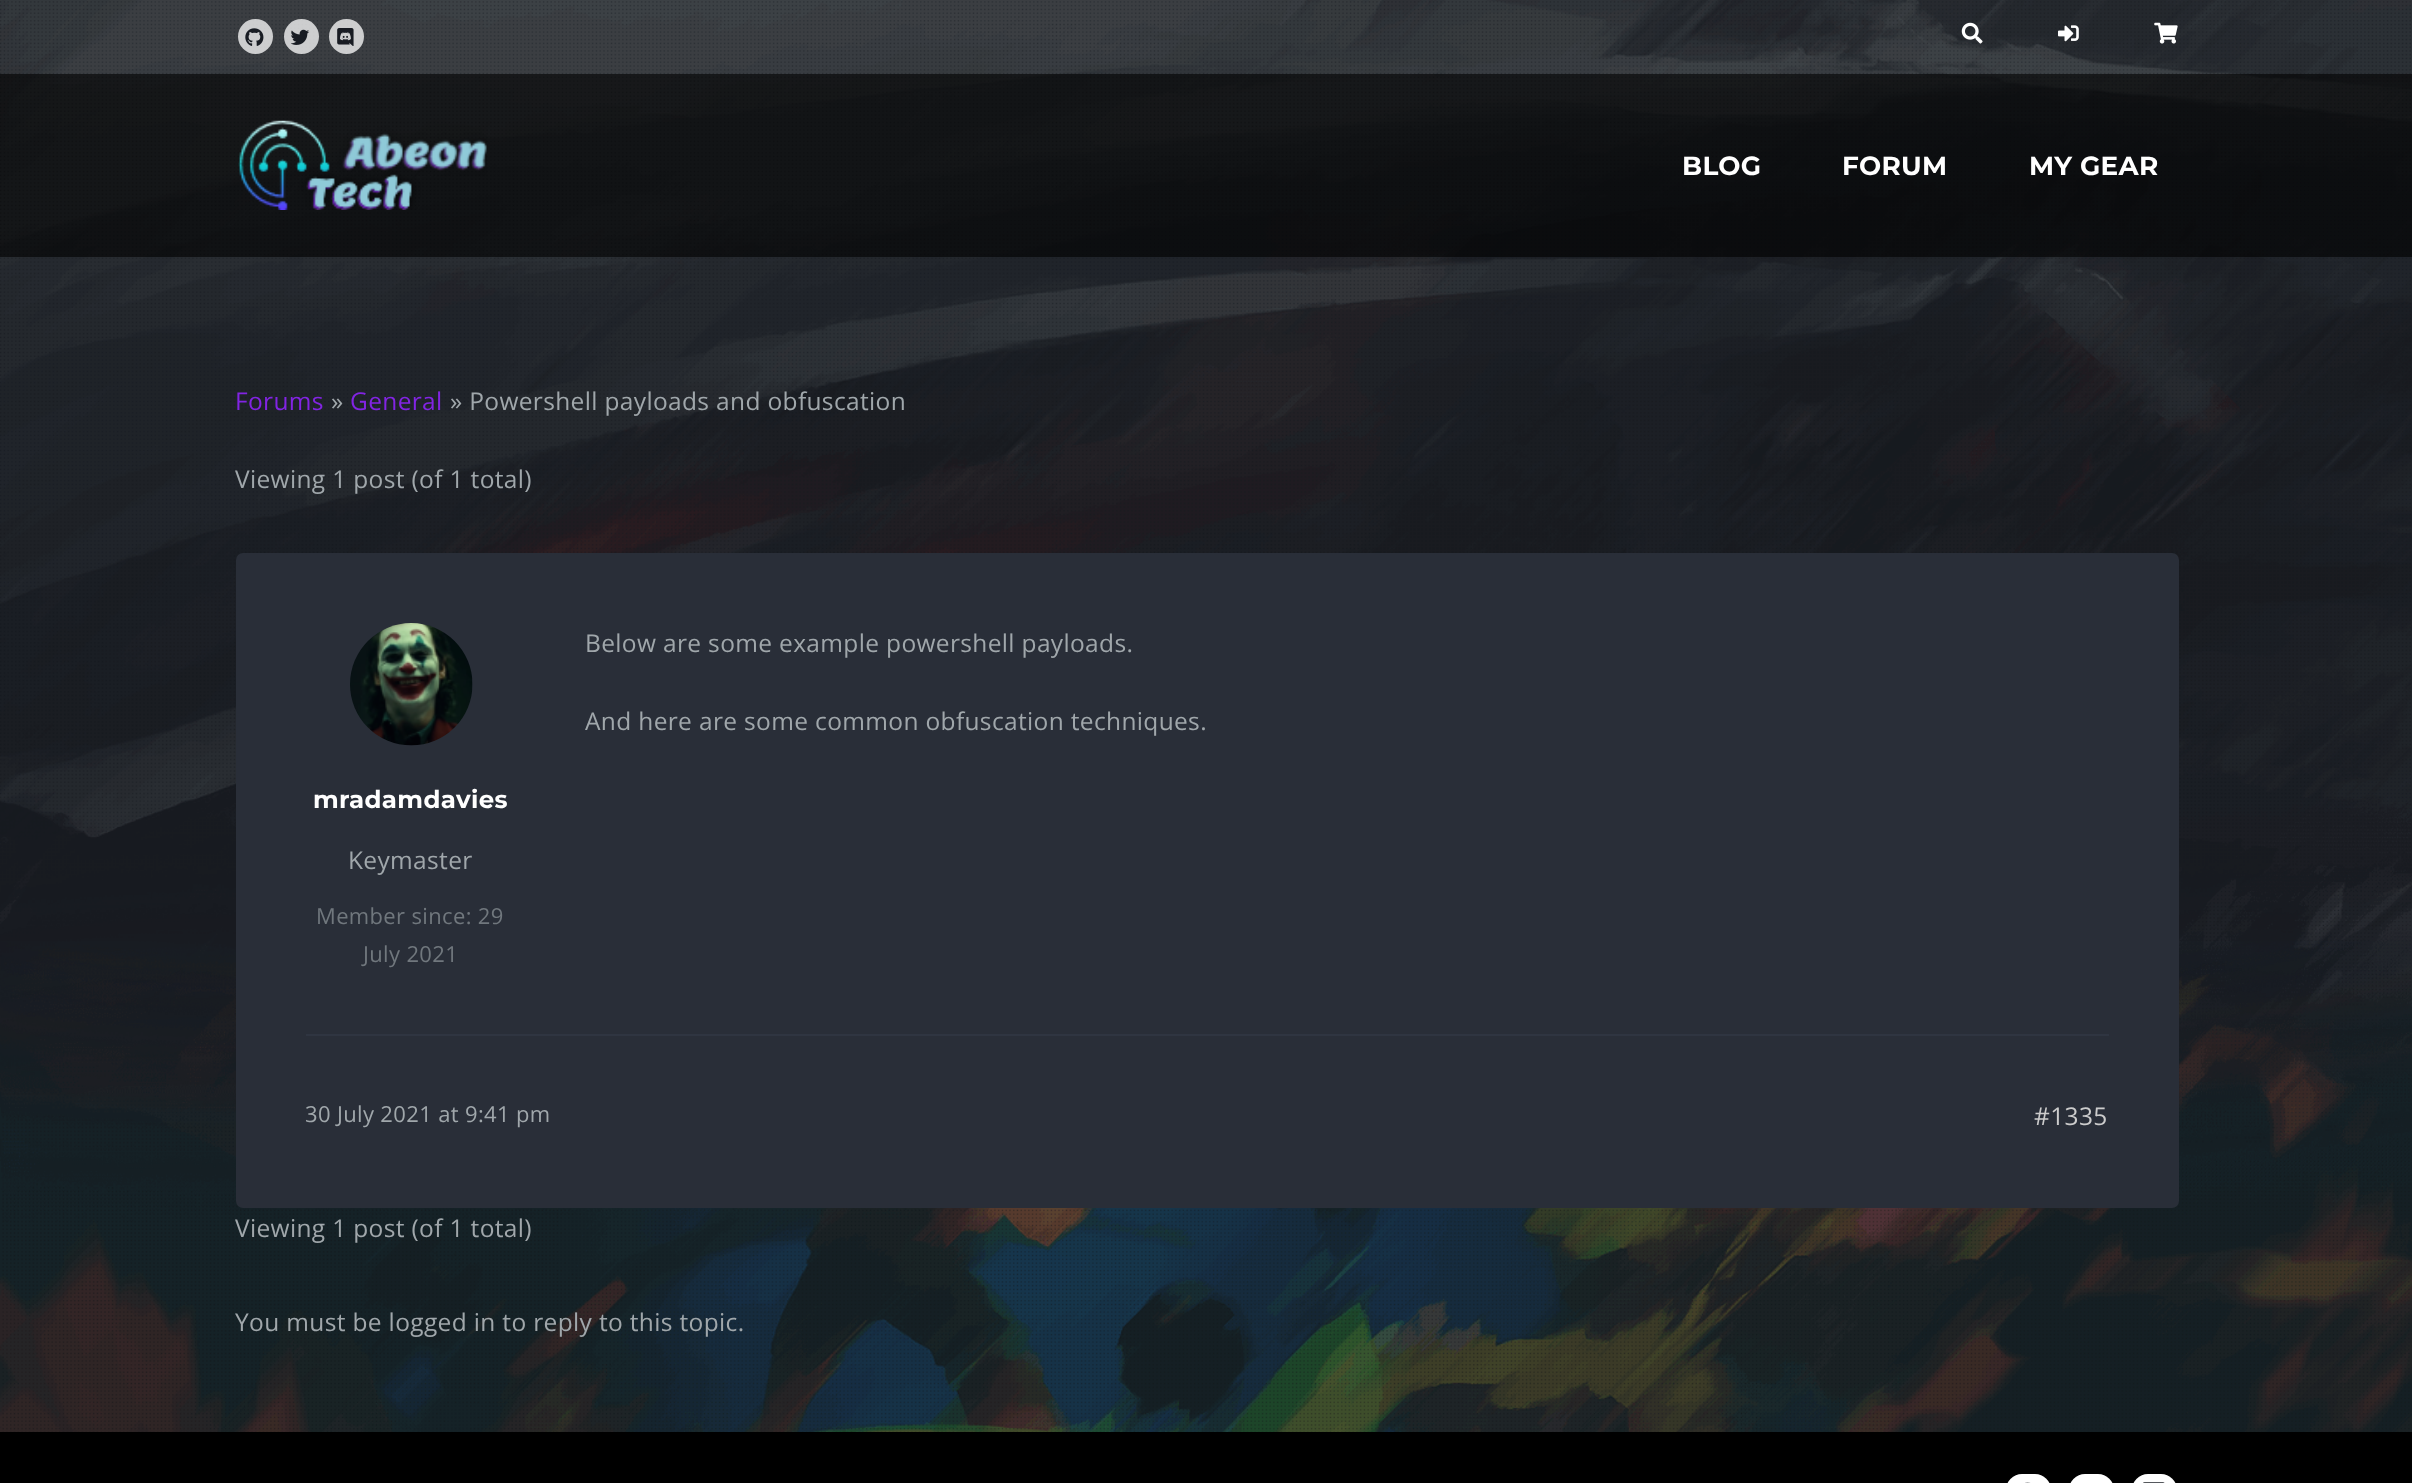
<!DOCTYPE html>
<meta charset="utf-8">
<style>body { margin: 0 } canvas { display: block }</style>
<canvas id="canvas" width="2412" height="1483"></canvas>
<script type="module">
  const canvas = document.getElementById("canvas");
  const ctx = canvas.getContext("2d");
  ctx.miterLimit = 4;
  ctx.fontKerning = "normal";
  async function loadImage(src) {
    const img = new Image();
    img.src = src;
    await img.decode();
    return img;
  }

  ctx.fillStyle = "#181c23";
  ctx.fillRect(0, 0, 2412, 1483);
  ctx.drawImage(await loadImage("img1.png"), 0, 0, 2412, 1095);
  ctx.fillStyle = "rgba(255, 255, 255, 0.75)";
  ctx.beginPath();
  ctx.arc(255.5, 36.5, 17.5, 0, Math.PI * 2);
  ctx.fill();
  ctx.drawImage(await loadImage("img2.png"), 245, 28, 19, 18);
  ctx.beginPath();
  ctx.arc(301.5, 36.5, 17.5, 0, Math.PI * 2);
  ctx.fill();
  ctx.drawImage(await loadImage("img3.png"), 291, 29, 19, 16);
  ctx.beginPath();
  ctx.arc(346.5, 36.5, 17.5, 0, Math.PI * 2);
  ctx.fill();
  ctx.drawImage(await loadImage("img4.png"), 337, 28, 17, 18);
  ctx.drawImage(await loadImage("img5.png"), 1961, 22, 22, 22);
  ctx.drawImage(await loadImage("img6.png"), 2058, 25, 21, 17);
  ctx.drawImage(await loadImage("img7.png"), 2154, 22, 24, 22);
  ctx.fillStyle = "rgba(0, 0, 0, 0.6)";
  ctx.fillRect(0, 74, 2412, 183);
  ctx.drawImage(await loadImage("img8.png"), 238, 120, 249, 90);
  ctx.letterSpacing = "0.35px";
  ctx.font = "100 26.25px Montserrat";
  ctx.fillStyle = "#ffffff";
  ctx.fillText("BLOG", 1682, 175);
  ctx.fillText("FORUM", 1842, 175);
  ctx.fillText("MY GEAR", 2029, 175);
  ctx.font = "24.5px Open Sans";
  ctx.fillStyle = "#8224e3";
  ctx.fillText("Forums", 235, 410);
  ctx.fillStyle = "#a0a7ab";
  ctx.fillText("»", 331, 410);
  ctx.fillStyle = "#8224e3";
  ctx.fillText("General", 350, 410);
  ctx.fillStyle = "#a0a7ab";
  ctx.fillText("» Powershell payloads and obfuscation", 450, 410);
  ctx.fillText("Viewing 1 post (of 1 total)", 235, 488);
  ctx.drawImage(await loadImage("img10.png"), 0, 941, 2412, 491);
  ctx.fillStyle = "#292e38";
  ctx.beginPath();
  ctx.roundRect(236, 553, 1943, 655, 7);
  ctx.fill();
  ctx.fillStyle = "#a0a7ab";
  ctx.fillText("Below are some example powershell payloads.", 585, 652);
  ctx.fillText("And here are some common obfuscation techniques.", 585, 730);
  ctx.drawImage(await loadImage("img9.png"), 350, 623, 123, 123);
  ctx.font = "100 24.5px Montserrat";
  ctx.fillStyle = "#ffffff";
  ctx.fillText("mradamdavies", 313, 808);
  ctx.font = "24.5px Open Sans";
  ctx.fillStyle = "#a0a7ab";
  ctx.fillText("Keymaster", 348, 869);
  ctx.font = "22px Open Sans";
  ctx.fillStyle = "#70777d";
  ctx.fillText("Member since: 29", 316, 924);
  ctx.fillText("July 2021", 363, 962);
  ctx.fillStyle = "#2f3541";
  ctx.fillRect(306, 1034, 1803, 2);
  ctx.fillStyle = "#a0a7ab";
  ctx.fillText("30 July 2021 at 9:41 pm", 305, 1122);
  ctx.font = "24.5px Open Sans";
  ctx.fillStyle = "#cccccc";
  ctx.fillText("#1335", 2034, 1125);
  ctx.fillStyle = "#a0a7ab";
  ctx.fillText("Viewing 1 post (of 1 total)", 235, 1237);
  ctx.fillText("You must be logged in to reply to this topic.", 235, 1331);
  ctx.fillStyle = "#000000";
  ctx.fillRect(0, 1432, 2412, 51);
  ctx.fillStyle = "#ffffff";
  ctx.beginPath();
  ctx.roundRect(2006, 1474, 45, 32, 22.5);
  ctx.fill();
  ctx.drawImage(await loadImage("img11.png"), 2025, 1482, 6, 1);
  ctx.beginPath();
  ctx.roundRect(2069, 1474, 45, 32, 22.5);
  ctx.fill();
  ctx.beginPath();
  ctx.roundRect(2132, 1474, 45, 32, 22.5);
  ctx.fill();
  ctx.drawImage(await loadImage("img12.png"), 2143, 1482, 22, 1);
</script>
